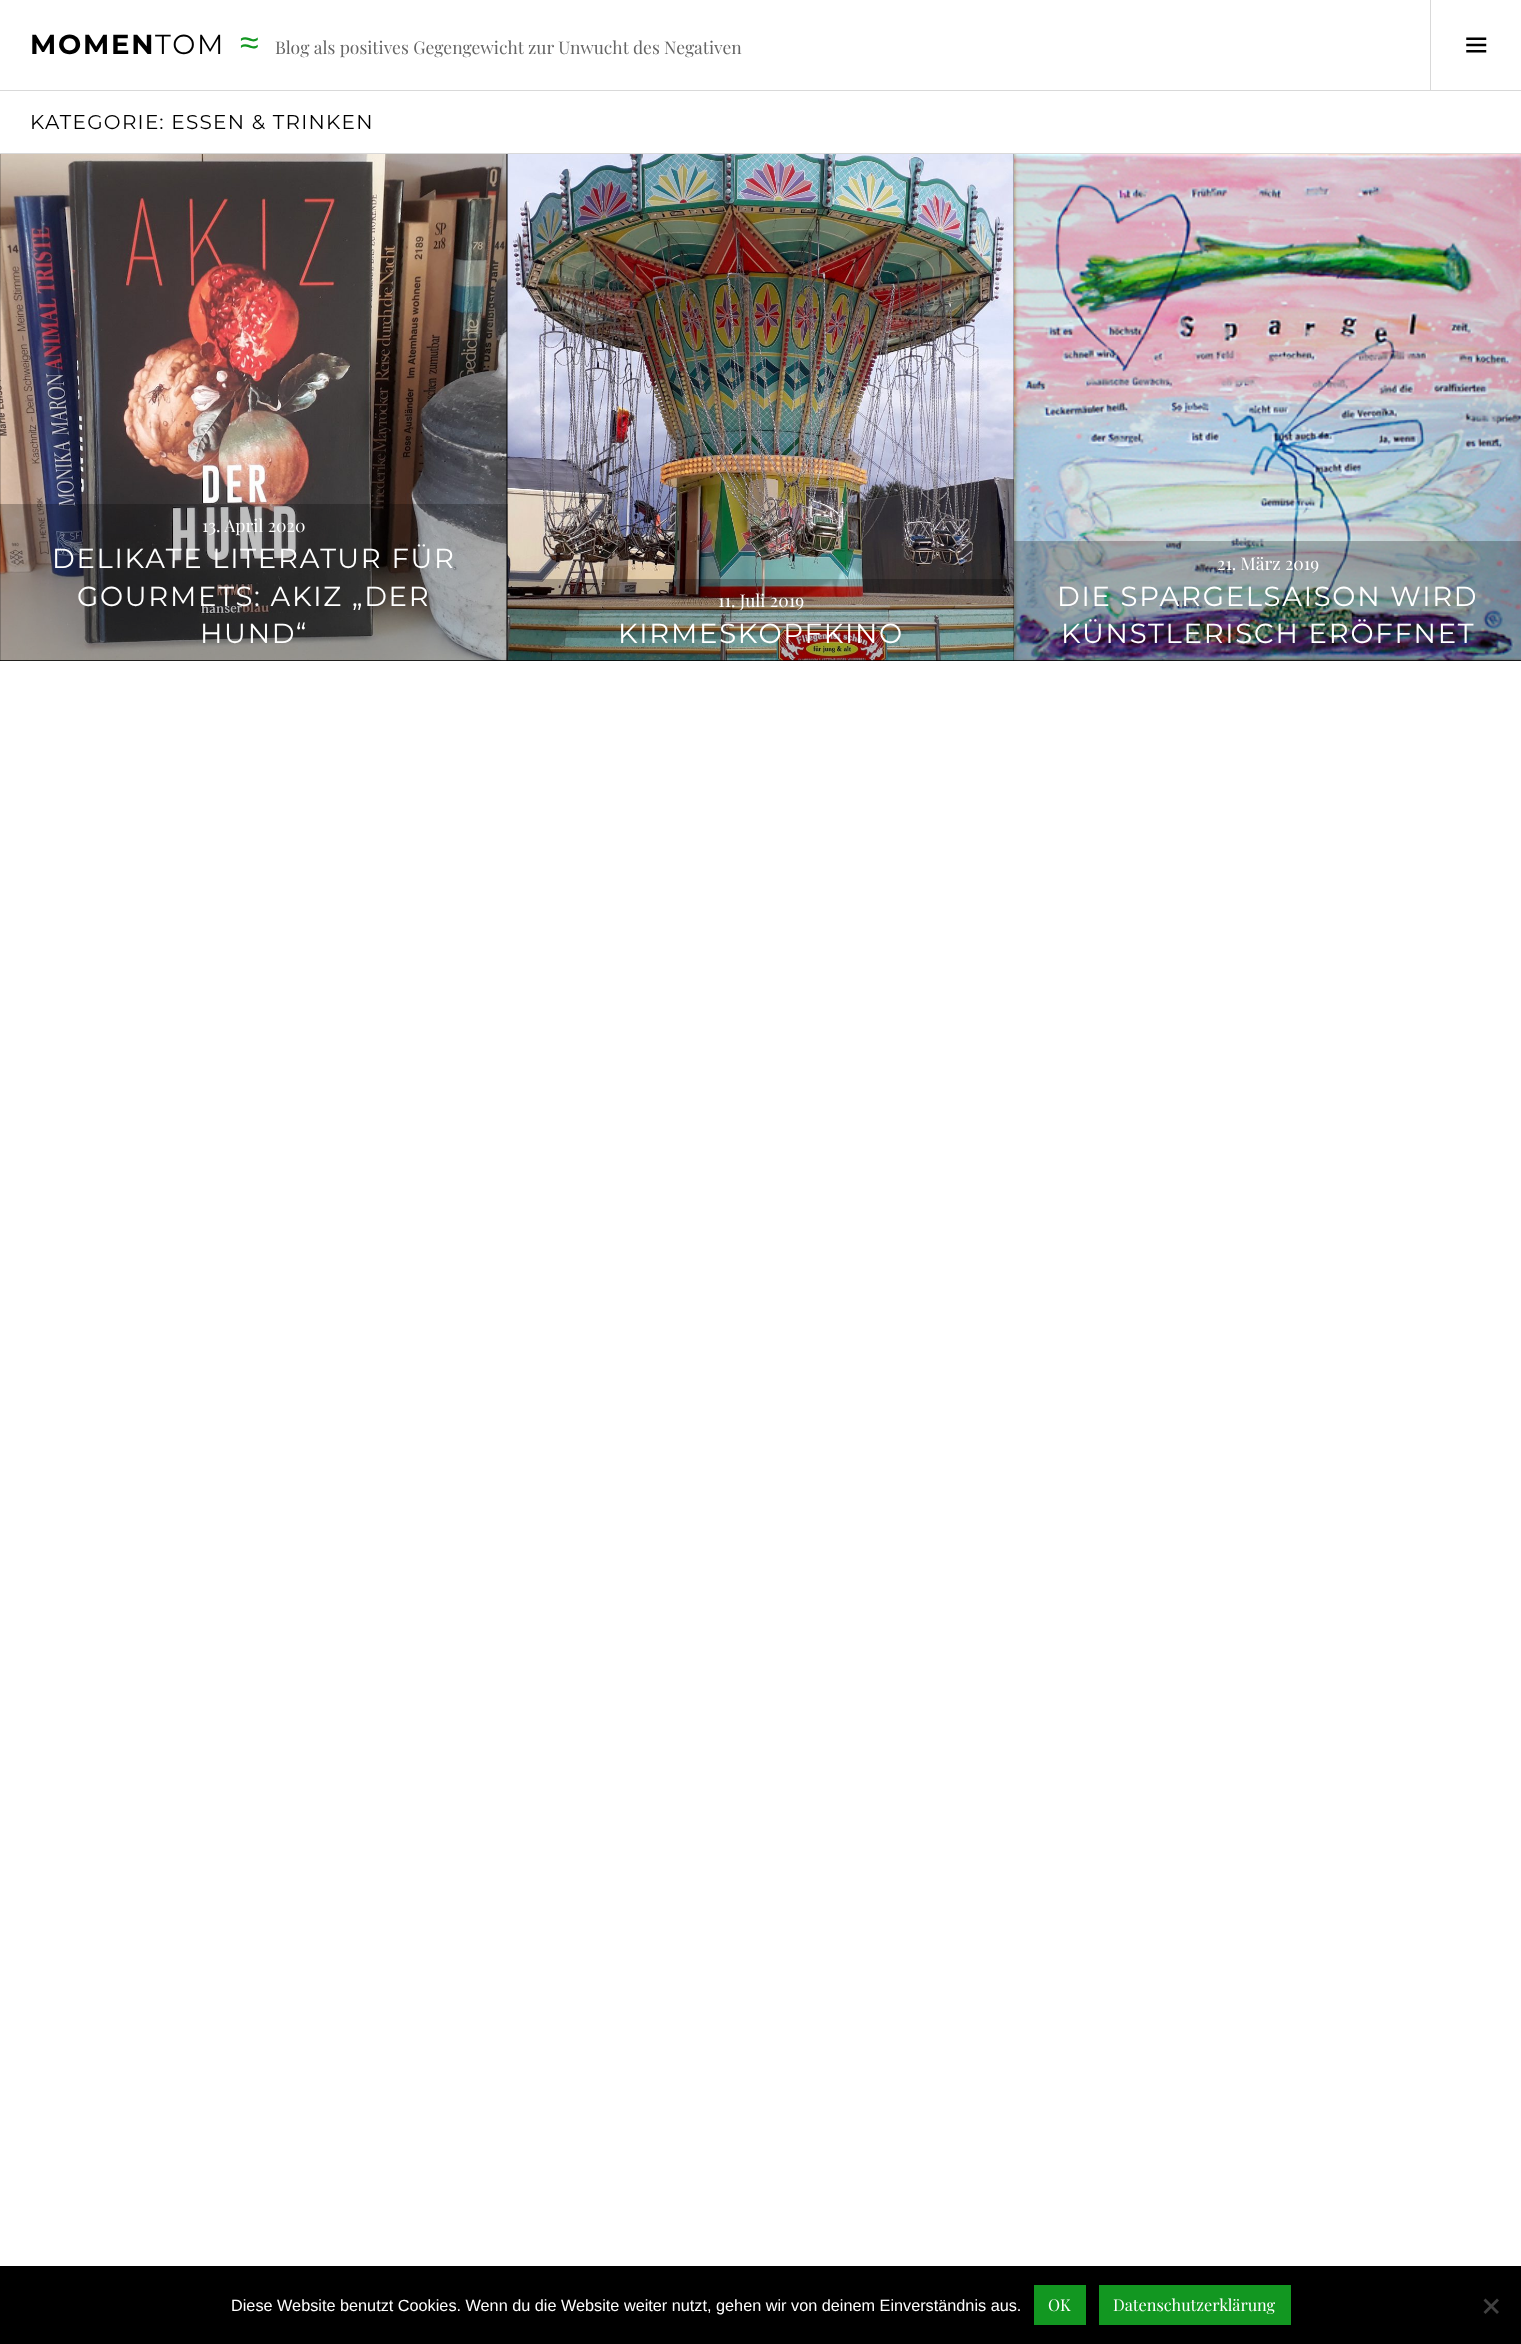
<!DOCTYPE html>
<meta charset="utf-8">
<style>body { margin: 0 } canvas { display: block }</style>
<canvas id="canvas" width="1521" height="2344"></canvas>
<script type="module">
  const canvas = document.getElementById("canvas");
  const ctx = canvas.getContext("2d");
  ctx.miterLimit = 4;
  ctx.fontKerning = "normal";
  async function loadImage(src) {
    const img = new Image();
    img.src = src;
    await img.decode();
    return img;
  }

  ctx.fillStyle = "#ffffff";
  ctx.fillRect(0, 0, 1521, 2344);
  ctx.fillStyle = "#d9d9d9";
  ctx.fillRect(0, 90, 1521, 1);
  ctx.letterSpacing = "1.75px";
  ctx.font = "100 27.5px 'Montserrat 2'";
  ctx.fillStyle = "#000000";
  ctx.fillText("MOMEN", 30, 54);
  ctx.font = "100 27.5px Montserrat";
  ctx.fillText("TOM", 155, 54);
  ctx.font = "34px Liberation Sans";
  ctx.fillStyle = "#129721";
  ctx.fillText("≈", 240, 54);
  ctx.letterSpacing = "0px";
  ctx.font = "17.5px Playfair Display";
  ctx.fillStyle = "#666666";
  ctx.fillText("Blog als positives Gegengewicht zur Unwucht des Negativen", 275, 54);
  ctx.fillStyle = "#d9d9d9";
  ctx.fillRect(1430, 0, 1, 90);
  ctx.drawImage(await loadImage("img1.png"), 1466, 37, 21, 16);
  ctx.fillRect(0, 153, 1521, 1);
  ctx.letterSpacing = "1.25px";
  ctx.font = "100 20px Montserrat";
  ctx.fillStyle = "#000000";
  ctx.fillText("KATEGORIE: ESSEN & TRINKEN", 30, 129);
  ctx.fillRect(0, 154, 1014, 507);
  ctx.drawImage(await loadImage("img2.png"), 0, 154, 507, 507);
  ctx.drawImage(await loadImage("img3.png"), 507, 154, 507, 507);
  ctx.fillStyle = "rgba(0, 0, 0, 0.25)";
  ctx.fillRect(0, 504, 508, 157);
  ctx.letterSpacing = "0px";
  ctx.font = "17.5px Playfair Display";
  ctx.fillStyle = "#ffffff";
  ctx.fillText("13. April 2020", 202, 532);
  ctx.letterSpacing = "1.75px";
  ctx.font = "100 27.5px Montserrat";
  ctx.fillText("DELIKATE LITERATUR FÜR", 52, 568);
  ctx.fillText("GOURMETS: AKIZ „DER", 77, 606);
  ctx.fillText("HUND“", 200, 643);
  ctx.fillStyle = "rgba(0, 0, 0, 0.25)";
  ctx.fillRect(508, 579, 506, 82);
  ctx.letterSpacing = "0px";
  ctx.font = "17.5px Playfair Display";
  ctx.fillStyle = "#ffffff";
  ctx.fillText("11. Juli 2019", 718, 607);
  ctx.letterSpacing = "1.75px";
  ctx.font = "100 27.5px Montserrat";
  ctx.fillText("KIRMESKOPFKINO", 618, 643);
  ctx.fillStyle = "#000000";
  ctx.fillRect(1014, 660, 507, 1);
  ctx.drawImage(await loadImage("img4.png"), 1014, 154, 507, 507);
  ctx.fillStyle = "rgba(0, 0, 0, 0.25)";
  ctx.fillRect(1014, 541, 507, 120);
  ctx.letterSpacing = "0px";
  ctx.font = "17.5px Playfair Display";
  ctx.fillStyle = "#ffffff";
  ctx.fillText("21. März 2019", 1217, 570);
  ctx.letterSpacing = "1.75px";
  ctx.font = "100 27.5px Montserrat";
  ctx.fillText("DIE SPARGELSAISON WIRD", 1057, 606);
  ctx.fillText("KÜNSTLERISCH ERÖFFNET", 1061, 643);
  ctx.fillStyle = "#000000";
  ctx.fillRect(0, 2266, 1521, 78);
  ctx.letterSpacing = "0px";
  ctx.font = "16.25px Liberation Sans";
  ctx.fillStyle = "#ffffff";
  ctx.fillText("Diese Website benutzt Cookies. Wenn du die Website weiter nutzt, gehen wir von deinem Einverständnis aus.", 231, 2311);
  ctx.fillStyle = "#129721";
  ctx.fillRect(1034, 2285, 52, 40);
  ctx.font = "16.25px Playfair Display";
  ctx.fillStyle = "#ffffff";
  ctx.fillText("OK", 1048, 2311);
  ctx.fillStyle = "#129721";
  ctx.fillRect(1099, 2285, 192, 40);
  ctx.fillStyle = "#ffffff";
  ctx.fillText("Datenschutzerklärung", 1113, 2311);
  ctx.fillStyle = "#404040";
  ctx.beginPath();
  ctx.moveTo(1497, 2298.5);
  ctx.lineTo(1499, 2300.5);
  ctx.lineTo(1485.5, 2314);
  ctx.lineTo(1483.5, 2312);
  ctx.closePath();
  ctx.fill();
  ctx.beginPath();
  ctx.moveTo(1483.5, 2300.5);
  ctx.lineTo(1485.5, 2298.5);
  ctx.lineTo(1499, 2312);
  ctx.lineTo(1497, 2314);
  ctx.closePath();
  ctx.fill();
</script>
